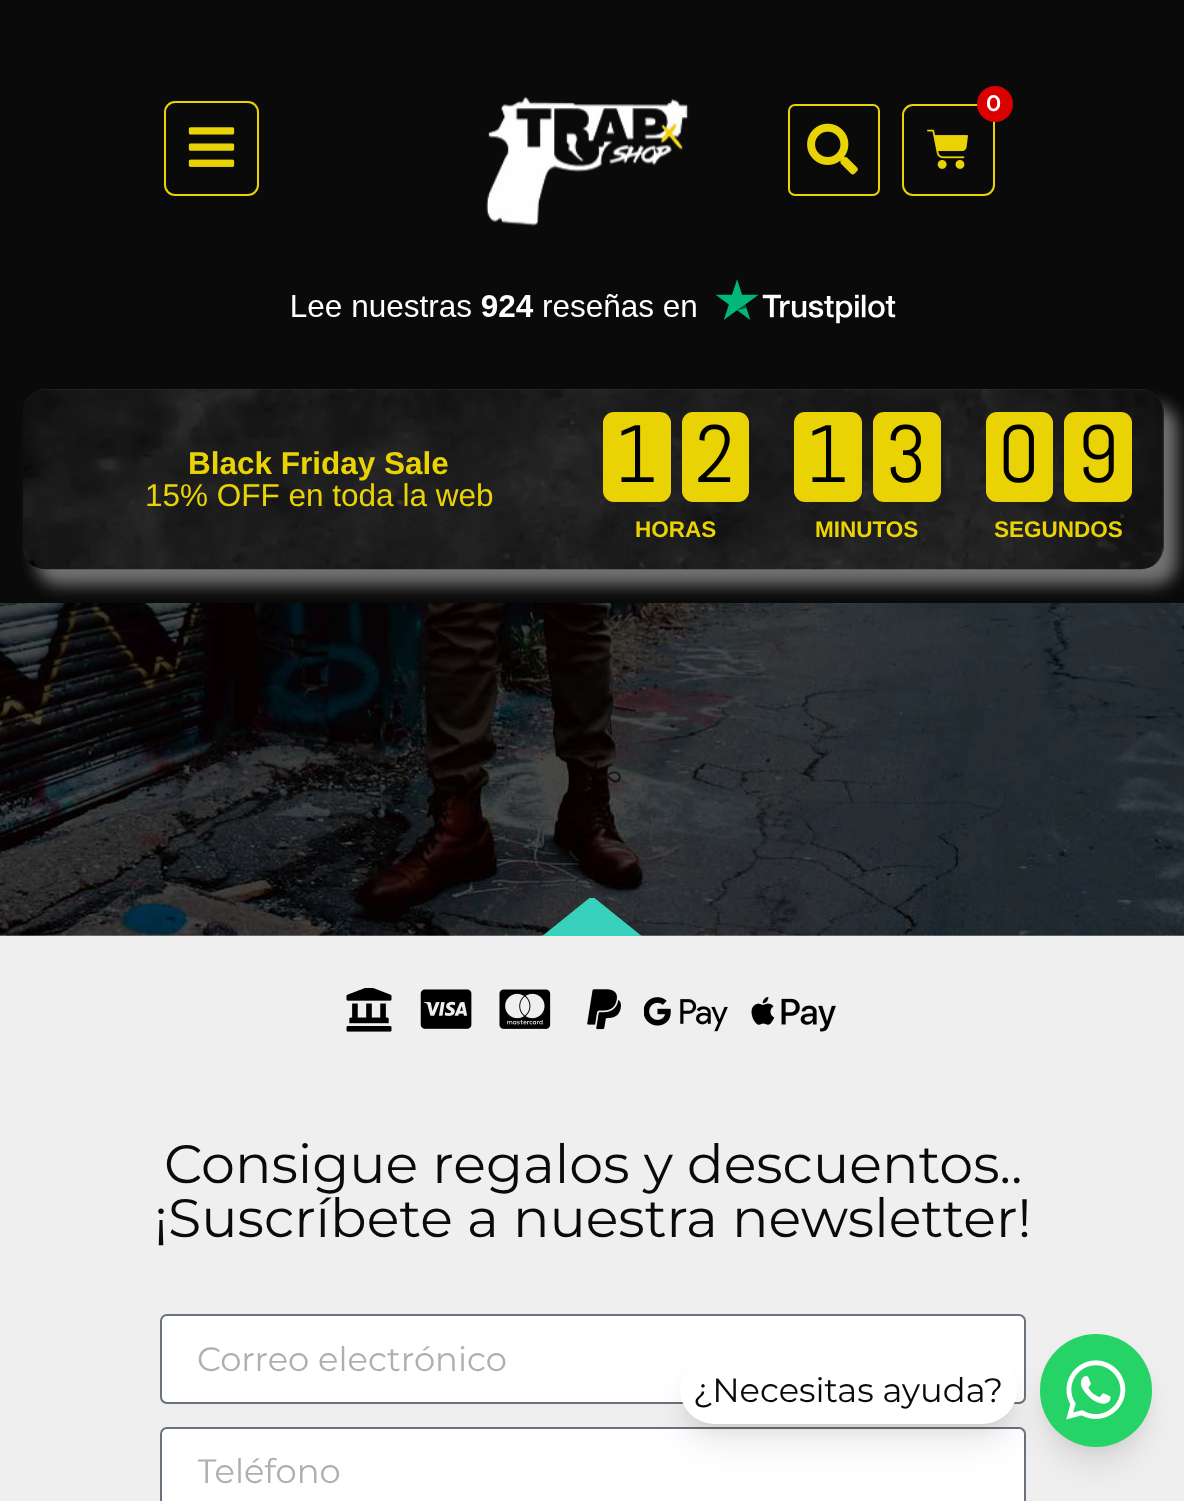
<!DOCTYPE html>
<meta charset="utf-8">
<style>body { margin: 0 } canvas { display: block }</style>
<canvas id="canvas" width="1184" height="1501"></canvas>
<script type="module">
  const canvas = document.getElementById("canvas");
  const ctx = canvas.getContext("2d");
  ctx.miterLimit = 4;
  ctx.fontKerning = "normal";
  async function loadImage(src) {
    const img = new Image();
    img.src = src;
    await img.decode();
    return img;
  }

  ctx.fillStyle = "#ffffff";
  ctx.fillRect(0, 0, 1184, 1501);
  ctx.fillStyle = "#0a0a0a";
  ctx.fillRect(0, 0, 1184, 603);
  ctx.beginPath();
  ctx.roundRect(165, 102, 93, 93, 10);
  ctx.strokeStyle = "#ead304";
  ctx.lineWidth = 2;
  ctx.stroke();
  ctx.drawImage(await loadImage("img1.png"), 188, 127, 47, 40);
  ctx.drawImage(await loadImage("img2.png"), 486, 96, 203, 130);
  ctx.beginPath();
  ctx.roundRect(789, 105, 90, 90, 6);
  ctx.stroke();
  ctx.drawImage(await loadImage("img3.png"), 807, 123, 51, 52);
  ctx.beginPath();
  ctx.roundRect(903, 105, 91, 90, 10);
  ctx.stroke();
  ctx.fillStyle = "#da0000";
  ctx.beginPath();
  ctx.arc(995, 104, 18, 0, Math.PI * 2);
  ctx.fill();
  ctx.font = "600 22.5px Montserrat";
  ctx.fillStyle = "#ffffff";
  ctx.fillText("0", 986, 111);
  ctx.drawImage(await loadImage("img4.png"), 927, 129, 41, 40);
  ctx.drawImage(await loadImage("img5.png"), 292, 279, 604, 45);
  ctx.drawImage(await loadImage("img7.png"), 0, 603, 1184, 333);
  ctx.fillStyle = "#727272";
  ctx.filter = "blur(8px)";
  ctx.beginPath();
  ctx.roundRect(36, 405, 1141, 180, 23);
  ctx.fill();
  ctx.filter = "none";
  ctx.fillStyle = "#474747";
  ctx.beginPath();
  ctx.roundRect(23, 389, 1140, 180, 23);
  ctx.fill();
  ctx.drawImage(await loadImage("img6.png"), 23, 389, 1141, 181);
  ctx.font = "bold 31.5px Liberation Sans";
  ctx.fillStyle = "#ead304";
  ctx.fillText("Black Friday Sale", 188, 474);
  ctx.font = "31.5px Liberation Sans";
  ctx.fillText("15% OFF en toda la web", 145, 506);
  ctx.beginPath();
  ctx.roundRect(603, 412, 68, 90, 11);
  ctx.fill();
  ctx.font = "81px Abel";
  ctx.fillStyle = "#000000";
  ctx.fillText("1", 615, 482);
  ctx.fillStyle = "#ead304";
  ctx.beginPath();
  ctx.roundRect(682, 412, 67, 90, 11);
  ctx.fill();
  ctx.fillStyle = "#000000";
  ctx.fillText("2", 695, 482);
  ctx.font = "bold 22.5px Liberation Sans";
  ctx.fillStyle = "#ead304";
  ctx.fillText("HORAS", 635, 537);
  ctx.beginPath();
  ctx.roundRect(794, 412, 68, 90, 11);
  ctx.fill();
  ctx.font = "81px Abel";
  ctx.fillStyle = "#000000";
  ctx.fillText("1", 806, 482);
  ctx.fillStyle = "#ead304";
  ctx.beginPath();
  ctx.roundRect(873, 412, 68, 90, 11);
  ctx.fill();
  ctx.fillStyle = "#000000";
  ctx.fillText("3", 885, 482);
  ctx.font = "bold 22.5px Liberation Sans";
  ctx.fillStyle = "#ead304";
  ctx.fillText("MINUTOS", 815, 537);
  ctx.beginPath();
  ctx.roundRect(986, 412, 67, 90, 11);
  ctx.fill();
  ctx.font = "81px Abel";
  ctx.fillStyle = "#000000";
  ctx.fillText("0", 998, 482);
  ctx.fillStyle = "#ead304";
  ctx.beginPath();
  ctx.roundRect(1064, 412, 68, 90, 11);
  ctx.fill();
  ctx.fillStyle = "#000000";
  ctx.fillText("9", 1077, 482);
  ctx.font = "bold 22.5px Liberation Sans";
  ctx.fillStyle = "#ead304";
  ctx.fillText("SEGUNDOS", 994, 537);
  ctx.save();
  ctx.beginPath();
  ctx.rect(0, 898, 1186, 40);
  ctx.clip();
  ctx.fillStyle = "#38d1bc";
  ctx.beginPath();
  ctx.moveTo(592, 896);
  ctx.lineTo(643, 937);
  ctx.lineTo(541, 937);
  ctx.closePath();
  ctx.fill();
  ctx.restore();
  ctx.fillStyle = "#efefef";
  ctx.fillRect(0, 936, 1184, 565);
  ctx.drawImage(await loadImage("img8.png"), 346, 988, 46, 44);
  ctx.drawImage(await loadImage("img9.png"), 420, 989, 52, 40);
  ctx.drawImage(await loadImage("img10.png"), 499, 989, 52, 40);
  ctx.drawImage(await loadImage("img11.png"), 587, 989, 34, 41);
  ctx.drawImage(await loadImage("img12.png"), 644, 997, 84, 35);
  ctx.drawImage(await loadImage("img13.png"), 751, 996, 85, 36);
  ctx.font = "54px Montserrat";
  ctx.fillStyle = "#0a0a0a";
  ctx.fillText("Consigue regalos y descuentos..", 164, 1183);
  ctx.fillText("¡Suscríbete a nuestra newsletter!", 154, 1237);
  ctx.fillStyle = "#ffffff";
  ctx.beginPath();
  ctx.roundRect(161, 1315, 864, 88, 6);
  ctx.fill();
  ctx.strokeStyle = "#69727d";
  ctx.stroke();
  ctx.font = "33.75px Montserrat";
  ctx.fillStyle = "#afafaf";
  ctx.fillText("Correo electrónico", 197, 1371);
  ctx.fillStyle = "#ffffff";
  ctx.beginPath();
  ctx.roundRect(161, 1428, 864, 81, 6);
  ctx.fill();
  ctx.stroke();
  ctx.save();
  ctx.beginPath();
  ctx.rect(198, 1449, 756, 43);
  ctx.clip();
  ctx.fillStyle = "#afafaf";
  ctx.fillText("Teléfono", 197, 1483);
  ctx.restore();
  ctx.fillStyle = "rgba(0, 0, 0, 0.05)";
  ctx.filter = "blur(7px)";
  ctx.beginPath();
  ctx.roundRect(684, 1368, 329, 61, 30.5);
  ctx.fill();
  ctx.filter = "none";
  ctx.filter = "blur(7px)";
  ctx.beginPath();
  ctx.roundRect(1044, 1348, 104, 103, 51.5);
  ctx.fill();
  ctx.filter = "none";
  ctx.fillStyle = "rgba(0, 0, 0, 0.1)";
  ctx.filter = "blur(17px)";
  ctx.beginPath();
  ctx.roundRect(1046, 1364, 99, 99, 49.5);
  ctx.fill();
  ctx.filter = "none";
  ctx.fillStyle = "#25d366";
  ctx.beginPath();
  ctx.roundRect(1040, 1334, 112, 113, 56);
  ctx.fill();
  ctx.fillStyle = "rgba(0, 0, 0, 0.1)";
  ctx.filter = "blur(17px)";
  ctx.beginPath();
  ctx.roundRect(686, 1384, 324, 56, 28);
  ctx.fill();
  ctx.filter = "none";
  ctx.fillStyle = "#ffffff";
  ctx.beginPath();
  ctx.roundRect(680, 1355, 337, 69, 34.5);
  ctx.fill();
  ctx.fillStyle = "#0a0a0a";
  ctx.fillText("¿Necesitas ayuda?", 693, 1402);
  ctx.drawImage(await loadImage("img14.png"), 1066, 1360, 60, 60);
</script>
